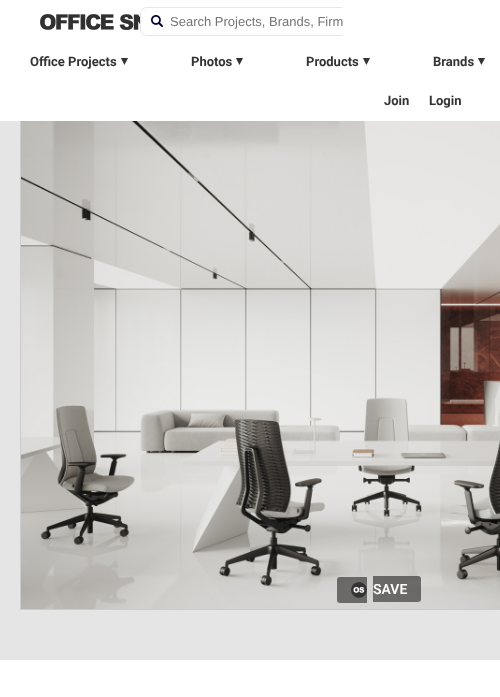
<!DOCTYPE html>
<meta charset="utf-8">
<style>body { margin: 0 } canvas { display: block }</style>
<canvas id="canvas" width="500" height="697"></canvas>
<script type="module">
  const canvas = document.getElementById("canvas");
  const ctx = canvas.getContext("2d");
  ctx.miterLimit = 4;
  ctx.fontKerning = "normal";
  async function loadImage(src) {
    const img = new Image();
    img.src = src;
    await img.decode();
    return img;
  }

  ctx.fillStyle = "#e5e5e5";
  ctx.fillRect(0, 0, 500, 697);
  ctx.strokeStyle = "#cccccc";
  ctx.strokeRect(20.5, 100.5, 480, 509);
  ctx.fillStyle = "#ffffff";
  ctx.fillRect(0, 0, 500, 121);
  ctx.drawImage(await loadImage("img1.png"), 40, 14, 100, 16);
  ctx.beginPath();
  ctx.roundRect(140.5, 7.5, 206, 28, 6.5);
  ctx.strokeStyle = "#e6e6e6";
  ctx.stroke();
  ctx.drawImage(await loadImage("img2.png"), 151, 15, 12, 12);
  ctx.fillRect(341, 8, 6, 27);
  ctx.font = "13px Liberation Sans";
  ctx.fillStyle = "#757575";
  ctx.fillText("Search Projects, Brands, Firm", 170, 26);
  ctx.font = "bold 13px Roboto";
  ctx.fillStyle = "#333333";
  ctx.fillText("Office Projects", 30, 66);
  ctx.font = "bold 13px DejaVu Sans";
  ctx.fillText("▾", 121, 65);
  ctx.font = "bold 13px Roboto";
  ctx.fillText("Photos", 191, 66);
  ctx.font = "bold 13px DejaVu Sans";
  ctx.fillText("▾", 236, 65);
  ctx.font = "bold 13px Roboto";
  ctx.fillText("Products", 306, 66);
  ctx.font = "bold 13px DejaVu Sans";
  ctx.fillText("▾", 363, 65);
  ctx.font = "bold 13px Roboto";
  ctx.fillText("Brands", 433, 66);
  ctx.font = "bold 13px DejaVu Sans";
  ctx.fillText("▾", 478, 65);
  ctx.font = "bold 13px Roboto";
  ctx.fillText("Join", 384, 105);
  ctx.fillText("Login", 429, 105);
  ctx.drawImage(await loadImage("img3.png"), 21, 121, 479, 488);
  ctx.fillStyle = "rgba(0, 0, 0, 0.5)";
  ctx.beginPath();
  ctx.roundRect(337, 577, 30, 26, [3, 0, 0, 3]);
  ctx.fill();
  ctx.beginPath();
  ctx.roundRect(373, 576, 48, 26, [0, 3, 3, 0]);
  ctx.fill();
  ctx.drawImage(await loadImage("img4.png"), 351, 582, 16, 16);
  ctx.font = "600 14px Roboto";
  ctx.fillStyle = "#ffffff";
  ctx.fillText("SAVE", 373, 594);
  ctx.fillRect(0, 660, 500, 37);
</script>
